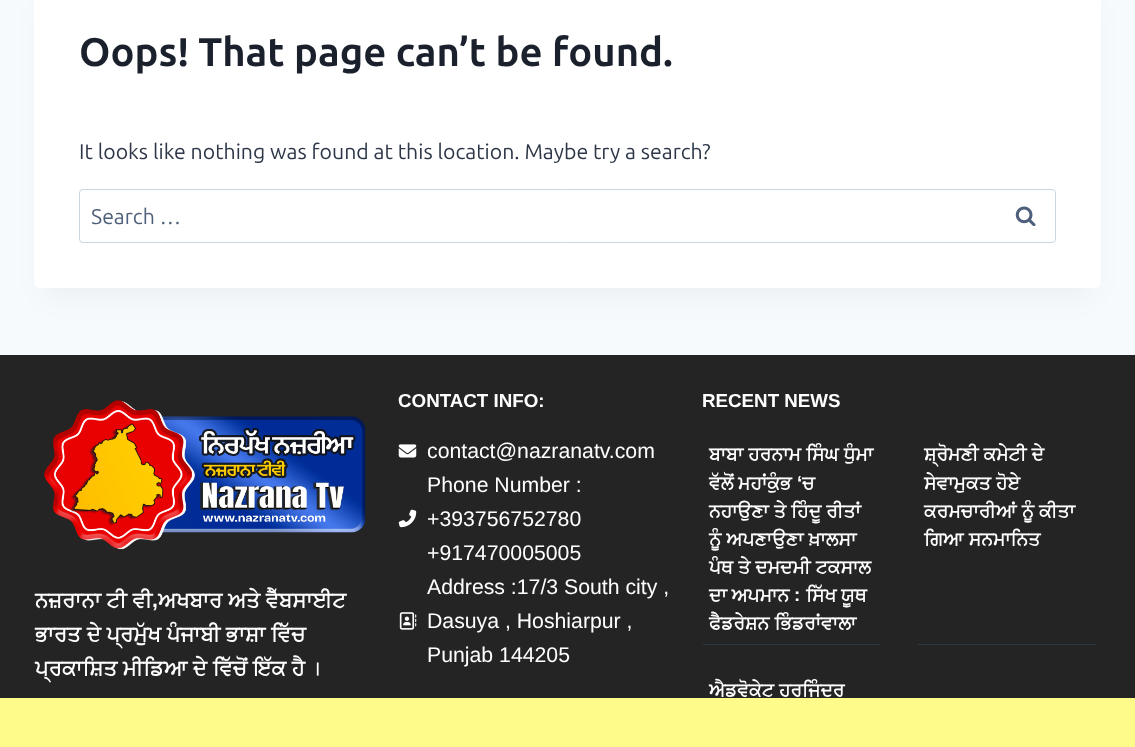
<!DOCTYPE html>
<meta charset="utf-8">
<style>body { margin: 0 } canvas { display: block }</style>
<canvas id="canvas" width="1135" height="747"></canvas>
<script type="module">
  const canvas = document.getElementById("canvas");
  const ctx = canvas.getContext("2d");
  ctx.miterLimit = 4;
  ctx.fontKerning = "normal";
  async function loadImage(src) {
    const img = new Image();
    img.src = src;
    await img.decode();
    return img;
  }

  ctx.fillStyle = "#f7fafc";
  ctx.fillRect(0, 0, 1135, 747);
  ctx.fillStyle = "rgba(0, 0, 0, 0.05)";
  ctx.filter = "blur(15.5px)";
  ctx.beginPath();
  ctx.rect(46, 8, 1043, 286);
  ctx.fill();
  ctx.filter = "none";
  ctx.fillStyle = "#ffffff";
  ctx.beginPath();
  ctx.roundRect(34, -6, 1067, 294, 6);
  ctx.fill();
  ctx.font = "bold 40px Ubuntu";
  ctx.fillStyle = "#1a202c";
  ctx.fillText("Oops! That page can’t be found.", 79, 66);
  ctx.font = "21.25px Ubuntu";
  ctx.fillStyle = "#2d3748";
  ctx.fillText("It looks like nothing was found at this location. Maybe try a search?", 79, 159);
  ctx.beginPath();
  ctx.roundRect(79.5, 189.5, 976, 53, 3.5);
  ctx.strokeStyle = "#cbd5e0";
  ctx.stroke();
  ctx.fillStyle = "#4d5f7a";
  ctx.fillText("Search …", 91, 224);
  ctx.drawImage(await loadImage("img1.png"), 1015, 206, 21, 20);
  ctx.fillStyle = "#252424";
  ctx.fillRect(0, 355, 1135, 343);
  ctx.drawImage(await loadImage("img2.png"), 44, 400, 322, 150);
  ctx.wordSpacing = "0.5px";
  ctx.font = "bold 21.25px FreeSans";
  ctx.fillStyle = "#ffffff";
  ctx.fillText("ਨਜ਼ਰਾਨਾ ਟੀ ਵੀ", 35, 607);
  ctx.wordSpacing = "0px";
  ctx.font = "bold 21.25px Liberation Sans";
  ctx.fillText(",", 152, 607);
  ctx.wordSpacing = "0.5px";
  ctx.font = "bold 21.25px FreeSans";
  ctx.fillText("ਅਖਬਾਰ ਅਤੇ ਵੈੱਬਸਾਈਟ", 158, 607);
  ctx.fillText("ਭਾਰਤ ਦੇ ਪ੍ਰਮੁੱਖ ਪੰਜਾਬੀ ਭਾਸ਼ਾ ਵਿੱਚ", 35, 641);
  ctx.fillText("ਪ੍ਰਕਾਸ਼ਿਤ ਮੀਡਿਆ ਦੇ ਵਿੱਚੋਂ ਇੱਕ ਹੈ ।", 35, 675);
  ctx.wordSpacing = "0px";
  ctx.font = "bold 18.75px Liberation Sans";
  ctx.fillText("CONTACT INFO:", 398, 407);
  ctx.drawImage(await loadImage("img3.png"), 398, 444, 19, 14);
  ctx.font = "21.25px Liberation Sans";
  ctx.fillText("contact@nazranatv.com", 427, 458);
  ctx.drawImage(await loadImage("img4.png"), 398, 509, 19, 19);
  ctx.fillText("Phone Number :", 427, 492);
  ctx.fillText("+393756752780", 427, 526);
  ctx.fillText("+917470005005", 427, 560);
  ctx.drawImage(await loadImage("img5.png"), 399, 612, 18, 18);
  ctx.fillText("Address :17/3 South city ,", 427, 594);
  ctx.fillText("Dasuya , Hoshiarpur ,", 427, 628);
  ctx.fillText("Punjab 144205", 427, 662);
  ctx.font = "bold 18.75px Liberation Sans";
  ctx.fillText("RECENT NEWS", 702, 407);
  ctx.fillStyle = "#2d3748";
  ctx.fillRect(703, 644, 177, 1);
  ctx.wordSpacing = "0.5px";
  ctx.font = "bold 18.75px FreeSans";
  ctx.fillStyle = "#ffffff";
  ctx.fillText("ਬਾਬਾ ਹਰਨਾਮ ਸਿੰਘ ਧੁੰਮਾ", 709, 460);
  ctx.save();
  ctx.beginPath();
  ctx.rect(703, 434, 177, 210);
  ctx.clip();
  ctx.wordSpacing = "0px";
  ctx.fillText("ਵੱਲੋਂ ਮਹਾਂਕੁੰਭ", 709, 489);
  ctx.restore();
  ctx.wordSpacing = "0px";
  ctx.font = "bold 18.75px Liberation Sans";
  ctx.fillText("‘", 797, 489);
  ctx.font = "bold 18.75px FreeSans";
  ctx.fillText("ਚ", 802, 489);
  ctx.wordSpacing = "0.5px";
  ctx.fillText("ਨਹਾਉਣਾ ਤੇ ਹਿੰਦੂ ਰੀਤਾਂ", 709, 517);
  ctx.fillText("ਨੂੰ ਅਪਣਾਉਣਾ ਖ਼ਾਲਸਾ", 709, 545);
  ctx.save();
  ctx.beginPath();
  ctx.rect(703, 434, 177, 210);
  ctx.clip();
  ctx.fillText("ਪੰਥ ਤੇ ਦਮਦਮੀ ਟਕਸਾਲ", 709, 573);
  ctx.restore();
  ctx.wordSpacing = "0px";
  ctx.fillText("ਦਾ ਅਪਮਾਨ", 709, 601);
  ctx.font = "bold 18.75px Liberation Sans";
  ctx.fillText(":", 794, 601);
  ctx.font = "bold 18.75px FreeSans";
  ctx.fillText("ਸਿੱਖ ਯੂਥ", 806, 601);
  ctx.save();
  ctx.beginPath();
  ctx.rect(703, 434, 177, 210);
  ctx.clip();
  ctx.wordSpacing = "0.5px";
  ctx.fillText("ਫੈਡਰੇਸ਼ਨ ਭਿੰਡਰਾਂਵਾਲਾ", 709, 629);
  ctx.restore();
  ctx.fillStyle = "#2d3748";
  ctx.fillRect(918, 644, 178, 1);
  ctx.wordSpacing = "0.5px";
  ctx.fillStyle = "#ffffff";
  ctx.fillText("ਸ਼੍ਰੋਮਣੀ ਕਮੇਟੀ ਦੇ", 924, 460);
  ctx.save();
  ctx.beginPath();
  ctx.rect(918, 434, 178, 210);
  ctx.clip();
  ctx.fillText("ਸੇਵਾਮੁਕਤ ਹੋਏ", 924, 489);
  ctx.restore();
  ctx.fillText("ਕਰਮਚਾਰੀਆਂ ਨੂੰ ਕੀਤਾ", 924, 517);
  ctx.fillText("ਗਿਆ ਸਨਮਾਨਿਤ", 924, 545);
  ctx.fillText("ਐਡਵੋਕੇਟ ਹਰਜਿੰਦਰ", 709, 696);
  ctx.fillStyle = "#fffb8b";
  ctx.fillRect(0, 698, 1135, 49);
</script>
